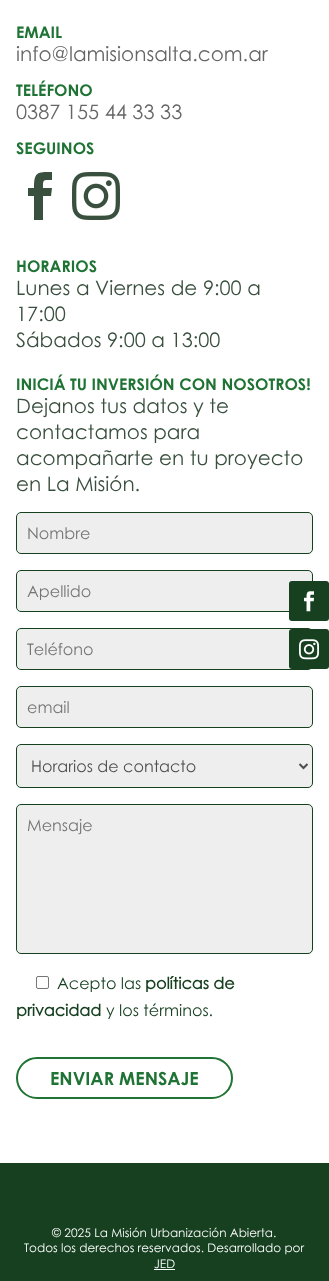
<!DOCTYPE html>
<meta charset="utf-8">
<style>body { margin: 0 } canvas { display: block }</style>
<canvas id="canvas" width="329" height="1281"></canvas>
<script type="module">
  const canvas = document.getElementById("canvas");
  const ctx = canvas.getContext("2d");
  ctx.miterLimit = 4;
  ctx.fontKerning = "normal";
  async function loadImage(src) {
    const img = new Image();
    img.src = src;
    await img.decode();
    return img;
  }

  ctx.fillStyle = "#ffffff";
  ctx.fillRect(0, 0, 329, 1281);
  ctx.font = "bold 16px Century Gothic";
  ctx.fillStyle = "#1f7334";
  ctx.fillText("EMAIL", 16, 38);
  ctx.font = "20px Century Gothic";
  ctx.fillStyle = "#666666";
  ctx.fillText("info@lamisionsalta.com.ar", 16, 61);
  ctx.font = "bold 16px Century Gothic";
  ctx.fillStyle = "#1f7334";
  ctx.fillText("TELÉFONO", 16, 96);
  ctx.font = "20px Century Gothic";
  ctx.fillStyle = "#666666";
  ctx.fillText("0387 155 44 33 33", 16, 119);
  ctx.font = "bold 16px Century Gothic";
  ctx.fillStyle = "#1f7334";
  ctx.fillText("SEGUINOS", 16, 154);
  ctx.fillStyle = "#3a503f";
  ctx.beginPath();
  ctx.moveTo(34, 220);
  ctx.lineTo(43, 220);
  ctx.lineTo(43, 196);
  ctx.lineTo(51, 196);
  ctx.lineTo(52, 188);
  ctx.lineTo(43, 188);
  ctx.bezierCurveTo(43, 179, 43, 180, 52, 180);
  ctx.lineTo(52, 172);
  ctx.bezierCurveTo(37, 172, 34, 172, 34, 188);
  ctx.lineTo(28, 188);
  ctx.lineTo(28, 196);
  ctx.lineTo(34, 196);
  ctx.closePath();
  ctx.fill();
  ctx.drawImage(await loadImage("img1.png"), 72, 172, 48, 48);
  ctx.fillStyle = "#1f7334";
  ctx.fillText("HORARIOS", 16, 272);
  ctx.font = "20px Century Gothic";
  ctx.fillStyle = "#3a503f";
  ctx.fillText("Lunes a Viernes de 9:00 a", 16, 295);
  ctx.fillText("17:00", 16, 321);
  ctx.fillText("Sábados 9:00 a 13:00", 16, 347);
  ctx.font = "bold 16px Century Gothic";
  ctx.fillStyle = "#1f7334";
  ctx.fillText("INICIÁ TU INVERSIÓN CON NOSOTROS!", 16, 390);
  ctx.font = "20px Century Gothic";
  ctx.fillStyle = "#3a503f";
  ctx.fillText("Dejanos tus datos y te", 16, 413);
  ctx.fillText("contactamos para", 16, 439);
  ctx.fillText("acompañarte en tu proyecto", 16, 465);
  ctx.fillText("en La Misión.", 16, 491);
  ctx.fillStyle = "#eeeeee";
  ctx.beginPath();
  ctx.roundRect(16.5, 512.5, 296, 41, 4.5);
  ctx.fill();
  ctx.strokeStyle = "#174021";
  ctx.stroke();
  ctx.font = "16px Century Gothic";
  ctx.fillStyle = "#757575";
  ctx.fillText("Nombre", 27, 539);
  ctx.fillStyle = "#eeeeee";
  ctx.beginPath();
  ctx.roundRect(16.5, 570.5, 296, 41, 4.5);
  ctx.fill();
  ctx.stroke();
  ctx.fillStyle = "#757575";
  ctx.fillText("Apellido", 27, 597);
  ctx.fillStyle = "#eeeeee";
  ctx.beginPath();
  ctx.roundRect(16.5, 628.5, 296, 41, 4.5);
  ctx.fill();
  ctx.stroke();
  ctx.fillStyle = "#757575";
  ctx.fillText("Teléfono", 27, 655);
  ctx.fillStyle = "#eeeeee";
  ctx.beginPath();
  ctx.roundRect(16.5, 686.5, 296, 41, 4.5);
  ctx.fill();
  ctx.stroke();
  ctx.fillStyle = "#757575";
  ctx.fillText("email", 27, 713);
  ctx.fillStyle = "#eeeeee";
  ctx.beginPath();
  ctx.roundRect(16.5, 744.5, 296, 43, 4.5);
  ctx.fill();
  ctx.stroke();
  ctx.beginPath();
  ctx.moveTo(299.5, 764);
  ctx.lineTo(303.5, 768);
  ctx.lineTo(307.5, 764);
  ctx.strokeStyle = "#4e4e4e";
  ctx.lineWidth = 2;
  ctx.stroke();
  ctx.fillStyle = "#4e4e4e";
  ctx.fillText("Horarios de contacto", 31, 772);
  ctx.fillStyle = "#eeeeee";
  ctx.beginPath();
  ctx.roundRect(16.5, 804.5, 296, 149, 4.5);
  ctx.fill();
  ctx.strokeStyle = "#174021";
  ctx.lineWidth = 1;
  ctx.stroke();
  ctx.fillStyle = "#757575";
  ctx.fillText("Mensaje", 27, 831);
  ctx.beginPath();
  ctx.roundRect(36.5, 976.5, 12, 12, 1.5);
  ctx.strokeStyle = "#767676";
  ctx.stroke();
  ctx.fillStyle = "#174021";
  ctx.fillText("Acepto las", 57, 989);
  ctx.font = "bold 16px 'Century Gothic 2'";
  ctx.fillText("políticas de", 145, 989);
  ctx.fillText("privacidad", 16, 1016);
  ctx.font = "16px Century Gothic";
  ctx.fillText("y los términos.", 106, 1016);
  ctx.beginPath();
  ctx.roundRect(17, 1058, 215, 40, 20);
  ctx.strokeStyle = "#1f7334";
  ctx.lineWidth = 2;
  ctx.stroke();
  ctx.font = "bold 18px Century Gothic";
  ctx.fillStyle = "#1f7334";
  ctx.fillText("ENVIAR MENSAJE", 50, 1085);
  ctx.fillStyle = "#174021";
  ctx.fillRect(0, 1163, 329, 118);
  ctx.beginPath();
  ctx.roundRect(289, 581, 40, 40, 3);
  ctx.fill();
  ctx.drawImage(await loadImage("img2.png"), 304, 591, 10, 21);
  ctx.beginPath();
  ctx.roundRect(289, 629, 40, 40, 3);
  ctx.fill();
  ctx.drawImage(await loadImage("img3.png"), 299, 639, 20, 21);
  ctx.font = "12px Century Gothic";
  ctx.fillStyle = "#ffffff";
  ctx.fillText("© 2025 La Misión Urbanización Abierta.", 52, 1237);
  ctx.fillText("Todos los derechos reservados. Desarrollado por", 24, 1252);
  ctx.fillText("JED", 154, 1268);
  ctx.fillRect(154, 1269, 21, 1);
</script>
